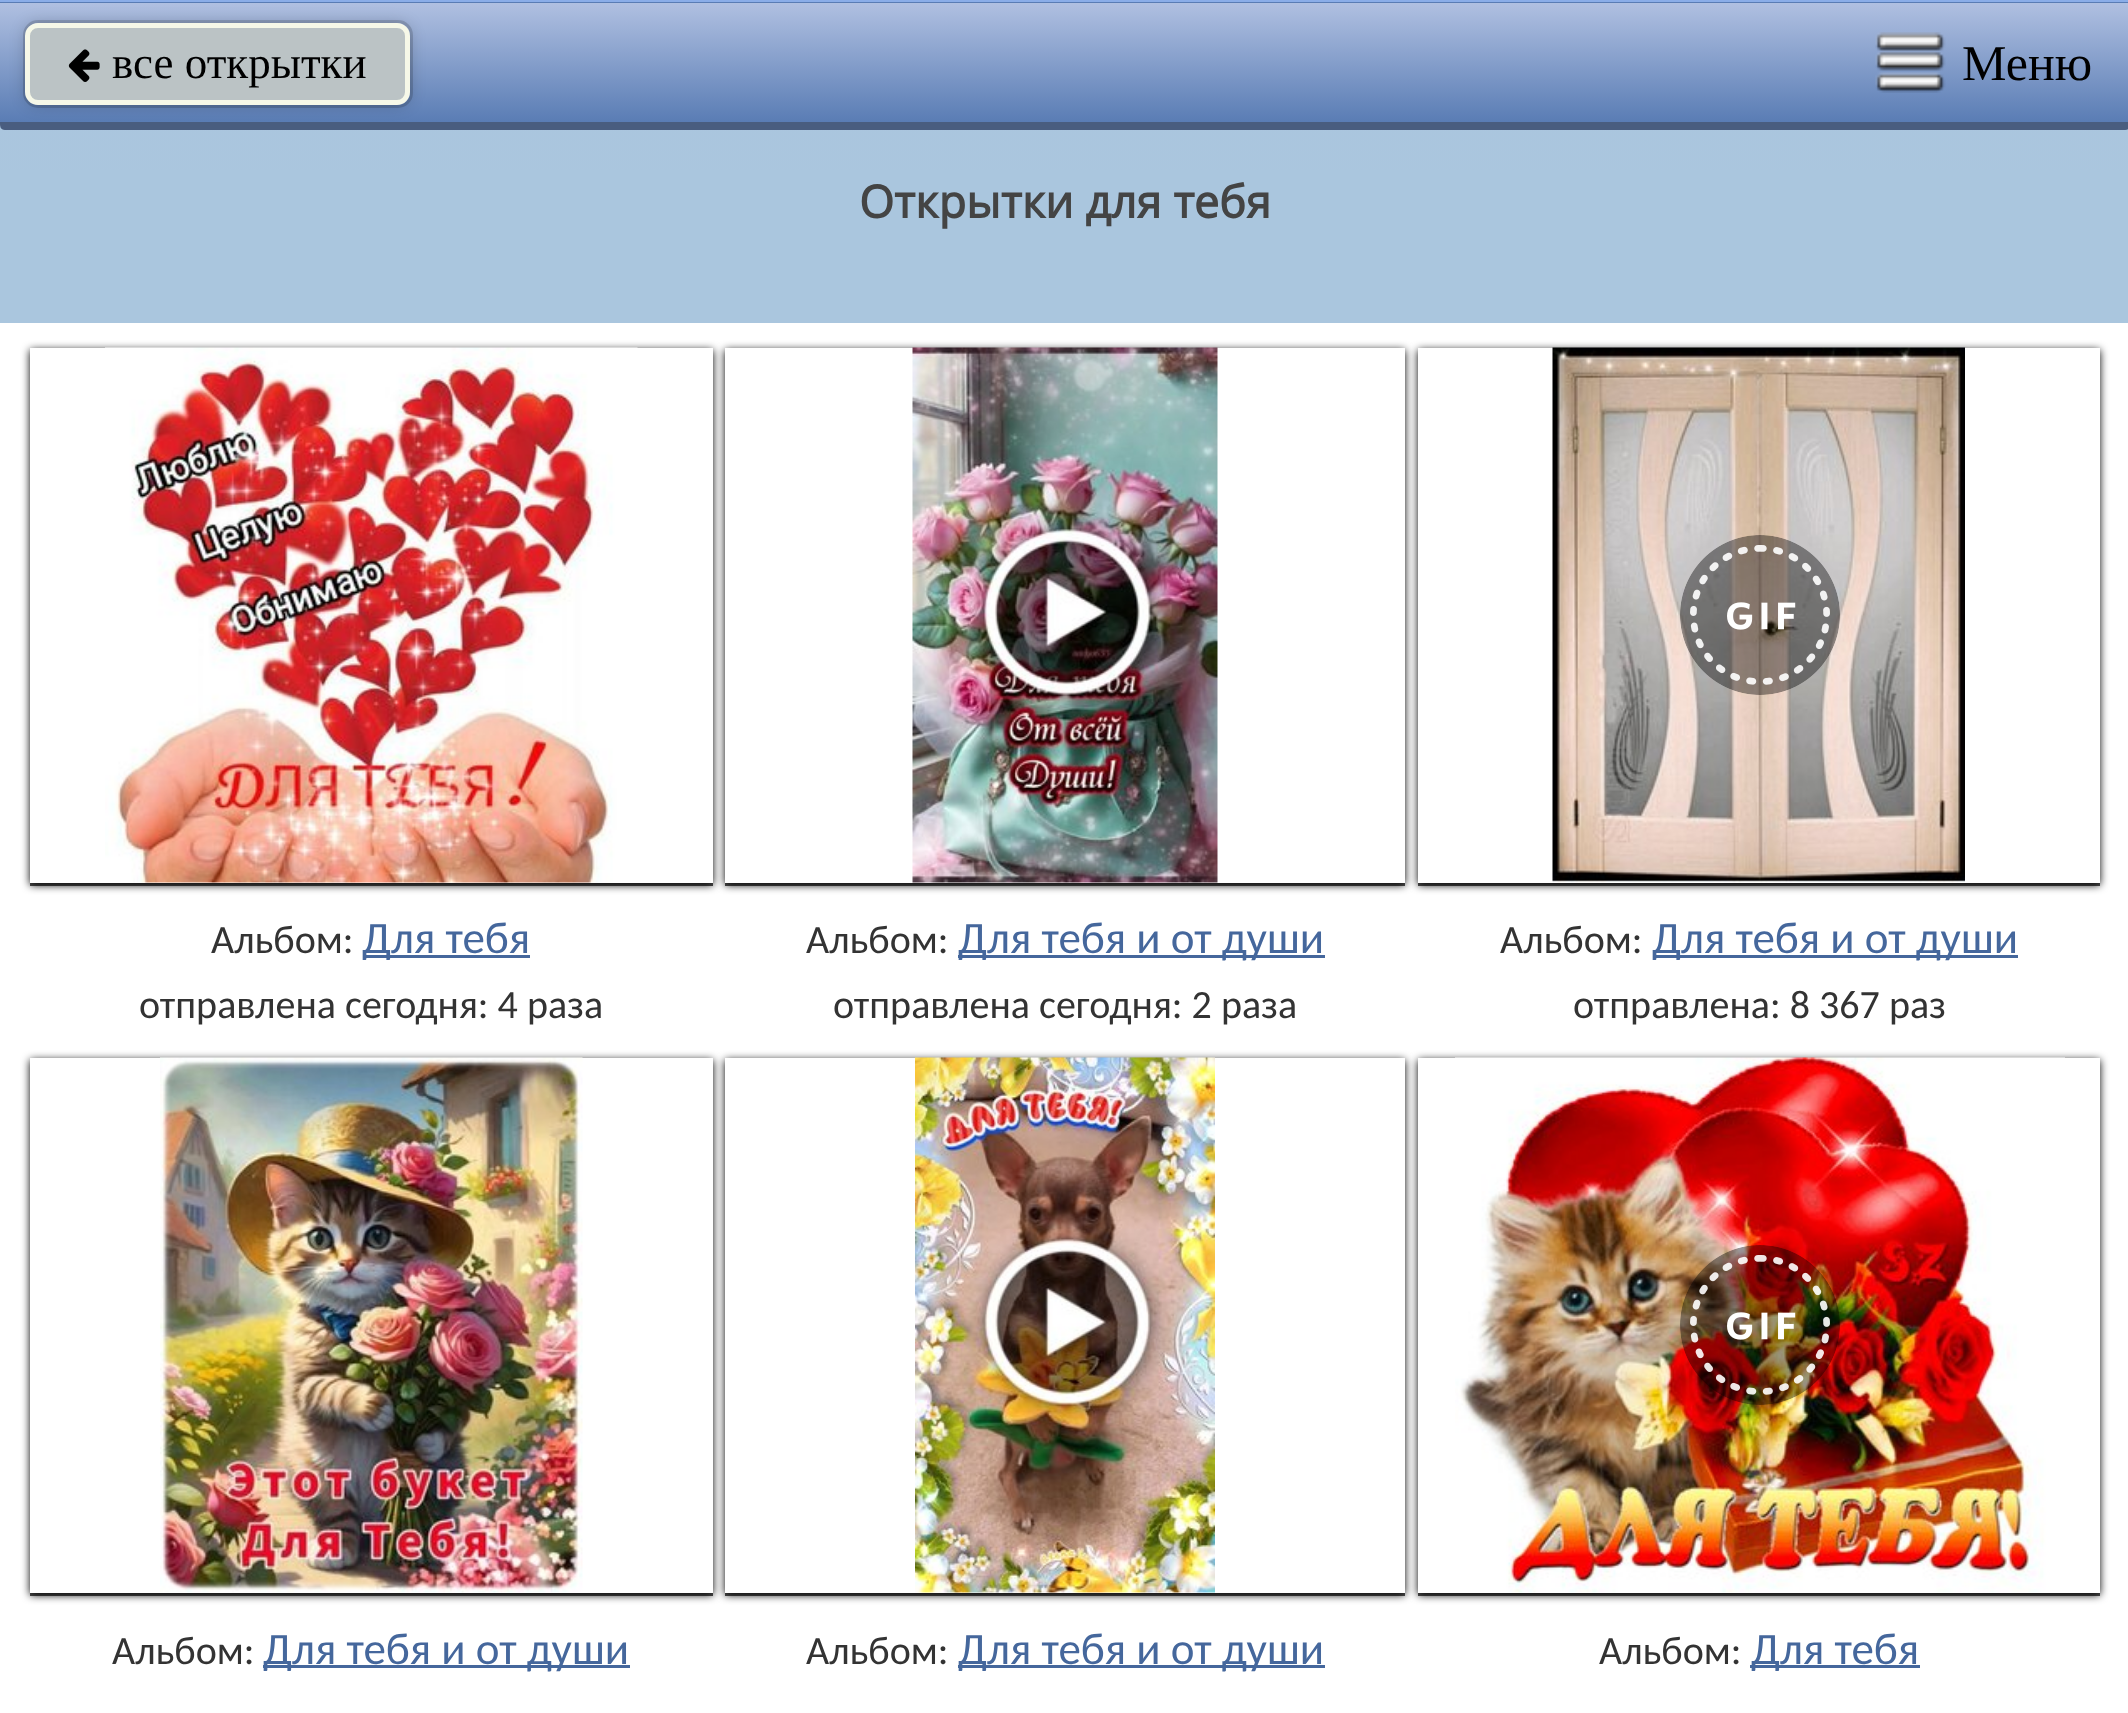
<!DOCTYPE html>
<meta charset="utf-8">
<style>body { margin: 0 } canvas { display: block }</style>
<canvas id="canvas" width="2128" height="1713"></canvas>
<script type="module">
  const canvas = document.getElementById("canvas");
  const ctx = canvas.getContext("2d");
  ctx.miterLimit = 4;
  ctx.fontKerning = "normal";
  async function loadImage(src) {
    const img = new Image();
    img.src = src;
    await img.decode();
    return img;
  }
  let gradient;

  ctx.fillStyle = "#ffffff";
  ctx.fillRect(0, 0, 2128, 1713);
  gradient = ctx.createLinearGradient(1065, 0, 1065, 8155);
  gradient.addColorStop(0, "#aac6de");
  gradient.addColorStop(0.48, "#b0c0e1");
  gradient.addColorStop(1, "#597cb4");
  ctx.fillStyle = gradient;
  ctx.fillRect(0, 123, 2128, 47);
  gradient = ctx.createLinearGradient(1065, -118, 1065, 2.5);
  gradient.addColorStop(0, "#b0c0e1");
  gradient.addColorStop(1, "#597cb4");
  ctx.fillStyle = gradient;
  ctx.fillRect(0, 2, 2128, 1);
  gradient = ctx.createLinearGradient(1065, 2.5, 1065, 123);
  gradient.addColorStop(0, "#b0c0e1");
  gradient.addColorStop(1, "#597cb4");
  ctx.fillStyle = gradient;
  ctx.fillRect(0, 3, 2128, 120);
  ctx.fillStyle = "#8aade8";
  ctx.fillRect(0, 0, 2128, 2);
  ctx.fillStyle = "#495d7f";
  ctx.beginPath();
  ctx.moveTo(0, 122);
  ctx.bezierCurveTo(0, 126, 0, 130, 5, 130);
  ctx.lineTo(2125, 130);
  ctx.bezierCurveTo(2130, 130, 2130, 126, 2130, 122);
  ctx.closePath();
  ctx.fill();
  ctx.fillStyle = "rgba(0, 0, 0, 0.2)";
  ctx.filter = "blur(7.5px)";
  ctx.beginPath();
  ctx.roundRect(25, 23, 385, 82, 13);
  ctx.fill();
  ctx.filter = "none";
  ctx.beginPath();
  ctx.roundRect(24.5, 21.5, 387, 85, 13.5);
  ctx.strokeStyle = "rgba(0, 0, 0, 0.15)";
  ctx.lineWidth = 3;
  ctx.stroke();
  ctx.fillStyle = "#bbc3c5";
  ctx.beginPath();
  ctx.roundRect(27.5, 25.5, 380, 77, 10.5);
  ctx.fill();
  ctx.strokeStyle = "#f6f8e8";
  ctx.lineWidth = 5;
  ctx.stroke();
  ctx.drawImage(await loadImage("img1.png"), 68, 49, 32, 33);
  ctx.font = "45px Liberation Serif";
  ctx.fillStyle = "#000000";
  ctx.fillText("все открытки", 112, 78);
  ctx.drawImage(await loadImage("img2.png"), 1875, 32, 71, 61);
  ctx.font = "50px Liberation Serif";
  ctx.fillText("Меню", 1962, 80);
  ctx.fillStyle = "#aac6de";
  ctx.fillRect(0, 170, 2128, 153);
  ctx.font = "bold 45px Open Sans";
  ctx.fillStyle = "#444444";
  ctx.fillText("Открытки для тебя", 859, 218);
  ctx.fillStyle = "#555555";
  ctx.fillRect(30, 883, 683, 3);
  ctx.fillStyle = "#000000";
  ctx.filter = "blur(4px)";
  ctx.beginPath();
  ctx.rect(30, 350, 683, 535);
  ctx.fill();
  ctx.filter = "none";
  ctx.fillStyle = "#ffffff";
  ctx.fillRect(30, 348, 683, 535);
  ctx.drawImage(await loadImage("img3.png"), 105, 347, 533, 536);
  ctx.font = "40px Carlito";
  ctx.fillStyle = "#333333";
  ctx.fillText("Альбом:", 211, 953);
  ctx.fillStyle = "#45679c";
  ctx.fillRect(363, 955, 167, 3);
  ctx.font = "45px Carlito";
  ctx.fillText("Для тебя", 362, 953);
  ctx.font = "40px Carlito";
  ctx.fillStyle = "#333333";
  ctx.fillText("отправлена сегодня: 4 раза", 139, 1018);
  ctx.fillStyle = "#555555";
  ctx.fillRect(725, 883, 680, 3);
  ctx.fillStyle = "#000000";
  ctx.filter = "blur(4px)";
  ctx.beginPath();
  ctx.rect(725, 350, 680, 535);
  ctx.fill();
  ctx.filter = "none";
  ctx.fillStyle = "#ffffff";
  ctx.fillRect(725, 348, 680, 535);
  ctx.drawImage(await loadImage("img4.png"), 912, 347, 306, 536);
  ctx.fillStyle = "#333333";
  ctx.fillText("Альбом:", 806, 953);
  ctx.fillStyle = "#45679c";
  ctx.fillRect(958, 955, 367, 3);
  ctx.font = "45px Carlito";
  ctx.fillText("Для тебя и от души", 958, 953);
  ctx.font = "40px Carlito";
  ctx.fillStyle = "#333333";
  ctx.fillText("отправлена сегодня: 2 раза", 833, 1018);
  ctx.fillStyle = "#555555";
  ctx.fillRect(1418, 883, 682, 3);
  ctx.fillStyle = "#000000";
  ctx.filter = "blur(4px)";
  ctx.beginPath();
  ctx.rect(1418, 350, 682, 535);
  ctx.fill();
  ctx.filter = "none";
  ctx.fillStyle = "#ffffff";
  ctx.fillRect(1418, 348, 682, 535);
  ctx.drawImage(await loadImage("img5.png"), 1552, 347, 413, 536);
  ctx.drawImage(await loadImage("img6.png"), 1680, 535, 160, 160);
  ctx.fillStyle = "#333333";
  ctx.fillText("Альбом:", 1500, 953);
  ctx.fillStyle = "#45679c";
  ctx.fillRect(1653, 955, 365, 3);
  ctx.font = "45px Carlito";
  ctx.fillText("Для тебя и от души", 1652, 953);
  ctx.font = "40px Carlito";
  ctx.fillStyle = "#333333";
  ctx.fillText("отправлена: 8 367 раз", 1573, 1018);
  ctx.fillStyle = "#555555";
  ctx.fillRect(30, 1593, 683, 3);
  ctx.fillStyle = "#000000";
  ctx.filter = "blur(4px)";
  ctx.beginPath();
  ctx.rect(30, 1060, 683, 535);
  ctx.fill();
  ctx.filter = "none";
  ctx.fillStyle = "#ffffff";
  ctx.fillRect(30, 1058, 683, 535);
  ctx.drawImage(await loadImage("img7.png"), 160, 1057, 423, 536);
  ctx.fillStyle = "#333333";
  ctx.fillText("Альбом:", 112, 1664);
  ctx.fillStyle = "#45679c";
  ctx.fillRect(263, 1665, 367, 3);
  ctx.font = "45px Carlito";
  ctx.fillText("Для тебя и от души", 263, 1664);
  ctx.fillStyle = "#555555";
  ctx.fillRect(725, 1593, 680, 3);
  ctx.fillStyle = "#000000";
  ctx.filter = "blur(4px)";
  ctx.beginPath();
  ctx.rect(725, 1060, 680, 535);
  ctx.fill();
  ctx.filter = "none";
  ctx.fillStyle = "#ffffff";
  ctx.fillRect(725, 1058, 680, 535);
  ctx.drawImage(await loadImage("img8.png"), 915, 1057, 300, 536);
  ctx.font = "40px Carlito";
  ctx.fillStyle = "#333333";
  ctx.fillText("Альбом:", 806, 1664);
  ctx.fillStyle = "#45679c";
  ctx.fillRect(958, 1665, 367, 3);
  ctx.font = "45px Carlito";
  ctx.fillText("Для тебя и от души", 958, 1664);
  ctx.fillStyle = "#555555";
  ctx.fillRect(1418, 1593, 682, 3);
  ctx.fillStyle = "#000000";
  ctx.filter = "blur(4px)";
  ctx.beginPath();
  ctx.rect(1418, 1060, 682, 535);
  ctx.fill();
  ctx.filter = "none";
  ctx.fillStyle = "#ffffff";
  ctx.fillRect(1418, 1058, 682, 535);
  ctx.drawImage(await loadImage("img9.png"), 1455, 1057, 610, 536);
  ctx.drawImage(await loadImage("img10.png"), 1680, 1245, 160, 160);
  ctx.font = "40px Carlito";
  ctx.fillStyle = "#333333";
  ctx.fillText("Альбом:", 1599, 1664);
  ctx.fillStyle = "#45679c";
  ctx.fillRect(1750, 1665, 170, 3);
  ctx.font = "45px Carlito";
  ctx.fillText("Для тебя", 1751, 1664);
</script>
